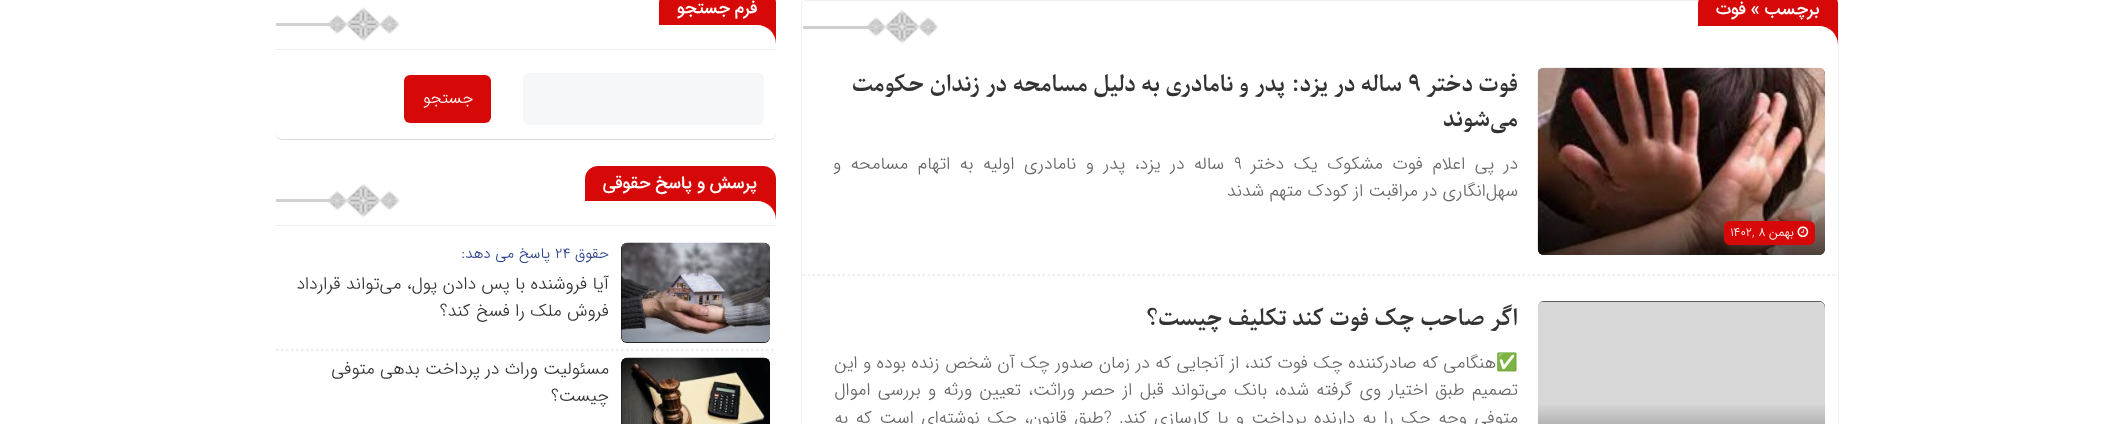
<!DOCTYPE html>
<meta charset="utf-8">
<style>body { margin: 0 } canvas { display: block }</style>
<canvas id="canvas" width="2114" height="424"></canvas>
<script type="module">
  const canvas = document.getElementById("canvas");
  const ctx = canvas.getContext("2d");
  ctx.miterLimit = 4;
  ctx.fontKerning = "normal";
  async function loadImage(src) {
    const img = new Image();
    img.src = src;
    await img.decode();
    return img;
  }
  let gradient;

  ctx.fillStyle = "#ffffff";
  ctx.fillRect(0, 0, 2114, 424);
  ctx.fillStyle = "rgba(28, 37, 64, 0.16)";
  ctx.filter = "blur(0.5px)";
  ctx.beginPath();
  ctx.roundRect(801, 1, 1038, 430, 5);
  ctx.fill();
  ctx.filter = "none";
  ctx.fillStyle = "#ffffff";
  ctx.beginPath();
  ctx.roundRect(801.5, 0.5, 1037, 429, 4.5);
  ctx.fill();
  ctx.strokeStyle = "#eeeeee";
  ctx.stroke();
  ctx.fillStyle = "#d70808";
  ctx.beginPath();
  ctx.moveTo(1711, -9);
  ctx.lineTo(1825, -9);
  ctx.bezierCurveTo(1832, -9, 1838, -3, 1838, 4);
  ctx.lineTo(1838, 45);
  ctx.lineTo(1698, 45);
  ctx.lineTo(1698, 4);
  ctx.bezierCurveTo(1698, -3, 1704, -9, 1711, -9);
  ctx.closePath();
  ctx.fill();
  ctx.direction = "rtl";
  ctx.font = "500 17.5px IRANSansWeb";
  ctx.fillStyle = "#ffffff";
  ctx.fillText("برچسب » فوت", 1819, 14);
  ctx.beginPath();
  ctx.roundRect(1698, 26, 140, 19, [0, 19, 0, 0]);
  ctx.fill();
  ctx.drawImage(await loadImage("img1.png"), 866, 10, 73, 34);
  ctx.fillStyle = "#d0d0d0";
  ctx.fillRect(803, 26, 67, 3);
  ctx.beginPath();
  ctx.moveTo(802.5, 275);
  ctx.lineTo(1837.5, 275);
  ctx.lineWidth = 2.5;
  ctx.setLineDash([2.5, 2.5]);
  ctx.stroke();
  ctx.fillStyle = "#ffffff";
  ctx.fillRect(803, 273, 1032, 1);
  ctx.font = "bold 22.5px Parastoo";
  ctx.fillStyle = "#333333";
  ctx.fillText("فوت دختر", 1518, 91);
  ctx.direction = "ltr";
  ctx.fillText("۹", 1408, 91);
  ctx.direction = "rtl";
  ctx.fillText("ساله در یزد: پدر و نامادری به دلیل مسامحه در زندان حکومت", 1402, 91);
  ctx.fillText("می‌شوند", 1518, 126);
  ctx.wordSpacing = "4.25px";
  ctx.font = "300 17.5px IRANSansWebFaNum";
  ctx.fillStyle = "#666666";
  ctx.fillText("در پی اعلام فوت مشکوک یک دختر", 1518, 169);
  ctx.wordSpacing = "0px";
  ctx.direction = "ltr";
  ctx.fillText("۹", 1234, 169);
  ctx.wordSpacing = "4.25px";
  ctx.direction = "rtl";
  ctx.fillText("ساله در یزد، پدر و نامادری اولیه به اتهام مسامحه و", 1224, 169);
  ctx.wordSpacing = "0px";
  ctx.fillText("سهل‌انگاری در مراقبت از کودک متهم شدند", 1518, 196);
  ctx.fillStyle = "#000000";
  ctx.beginPath();
  ctx.roundRect(1538, 68, 287, 187, 6);
  ctx.fill();
  ctx.drawImage(await loadImage("img2.png"), 1537, 67, 288, 188);
  gradient = ctx.createLinearGradient(1681, 255, 1681, 169);
  gradient.addColorStop(0, "rgba(0, 0, 0, 0.66)");
  gradient.addColorStop(1, "rgba(0, 0, 0, 0)");
  ctx.fillStyle = gradient;
  ctx.beginPath();
  ctx.roundRect(1538, 169, 287, 86, [0, 0, 6, 6]);
  ctx.fill();
  ctx.fillStyle = "#d70808";
  ctx.beginPath();
  ctx.roundRect(1724, 221, 91, 24, 6);
  ctx.fill();
  ctx.drawImage(await loadImage("img3.png"), 1797, 226, 12, 12);
  ctx.font = "300 12.5px IRANSansWebFaNum";
  ctx.fillStyle = "#ffffff";
  ctx.fillText("بهمن", 1794, 236);
  ctx.direction = "ltr";
  ctx.fillText("1402, 8", 1730, 236);
  ctx.fillStyle = "#000000";
  ctx.beginPath();
  ctx.roundRect(1538, 301, 287, 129, 6);
  ctx.fill();
  ctx.drawImage(await loadImage("img4.png"), 1537, 301, 288, 123);
  gradient = ctx.createLinearGradient(1681, 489, 1681, 403);
  gradient.addColorStop(0, "#494949");
  gradient.addColorStop(1, "#d7d7d7");
  ctx.fillStyle = gradient;
  ctx.fillRect(1538, 405, 287, 19);
  ctx.direction = "rtl";
  ctx.font = "bold 22.5px Parastoo";
  ctx.fillStyle = "#333333";
  ctx.fillText("اگر صاحب چک فوت کند تکلیف چیست؟", 1518, 325);
  ctx.font = "17.5px Noto Color Emoji";
  ctx.fillStyle = "#666666";
  ctx.fillText("✅", 1518, 368);
  ctx.font = "300 17.5px IRANSansWebFaNum";
  ctx.fillText("هنگامی که صادرکننده چک فوت کند، از آنجایی که در زمان صدور چک آن شخص زنده بوده و این", 1496, 368);
  ctx.wordSpacing = "2px";
  ctx.fillText("تصمیم طبق اختیار وی گرفته شده، بانک می‌تواند قبل از حصر وراثت، تعیین ورثه و بررسی اموال", 1518, 395);
  ctx.wordSpacing = "2.25px";
  ctx.fillText("متوفی وجه چک را به دارنده پرداخت و یا کارسازی کند. ?طبق قانون، چک نوشته‌ای است که به", 1518, 423);
  ctx.fillStyle = "rgba(28, 37, 64, 0.16)";
  ctx.filter = "blur(0.5px)";
  ctx.beginPath();
  ctx.roundRect(276, 1, 500, 139, 6);
  ctx.fill();
  ctx.filter = "none";
  ctx.fillStyle = "#ffffff";
  ctx.beginPath();
  ctx.roundRect(276, 0, 500, 139, [0, 0, 6, 6]);
  ctx.fill();
  ctx.drawImage(await loadImage("img5.png"), 327, 7, 73, 35);
  ctx.fillStyle = "#eeeeee";
  ctx.fillRect(276, 49, 500, 1);
  ctx.fillStyle = "#d70808";
  ctx.beginPath();
  ctx.moveTo(672, -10);
  ctx.lineTo(763, -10);
  ctx.bezierCurveTo(770, -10, 776, -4, 776, 3);
  ctx.lineTo(776, 44);
  ctx.lineTo(659, 44);
  ctx.lineTo(659, 3);
  ctx.bezierCurveTo(659, -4, 665, -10, 672, -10);
  ctx.closePath();
  ctx.fill();
  ctx.wordSpacing = "0px";
  ctx.font = "500 17.5px IRANSansWeb";
  ctx.fillStyle = "#ffffff";
  ctx.fillText("فرم جستجو", 757, 13);
  ctx.beginPath();
  ctx.roundRect(659, 25, 117, 19, [0, 19, 0, 0]);
  ctx.fill();
  ctx.fillStyle = "#d0d0d0";
  ctx.fillRect(276, 23, 57, 3);
  ctx.fillStyle = "#f6f7f8";
  ctx.beginPath();
  ctx.roundRect(523, 73, 241, 52, 6);
  ctx.fill();
  ctx.fillStyle = "#d70808";
  ctx.beginPath();
  ctx.roundRect(404, 75, 87, 48, 6);
  ctx.fill();
  ctx.font = "300 16.5px IRANSansWeb";
  ctx.fillStyle = "#ffffff";
  ctx.fillText("جستجو", 473, 103);
  ctx.drawImage(await loadImage("img6.png"), 327, 183, 73, 35);
  ctx.fillStyle = "#eeeeee";
  ctx.fillRect(276, 225, 500, 1);
  ctx.fillStyle = "#d70808";
  ctx.beginPath();
  ctx.roundRect(585, 166, 191, 54, [13, 13, 0, 0]);
  ctx.fill();
  ctx.font = "500 17.5px IRANSansWeb";
  ctx.fillStyle = "#ffffff";
  ctx.fillText("پرسش و پاسخ حقوقی", 757, 188);
  ctx.beginPath();
  ctx.roundRect(585, 201, 191, 19, [0, 19, 0, 0]);
  ctx.fill();
  ctx.fillStyle = "#d0d0d0";
  ctx.fillRect(276, 199, 57, 3);
  ctx.beginPath();
  ctx.moveTo(276, 350);
  ctx.lineTo(776, 350);
  ctx.stroke();
  ctx.fillStyle = "#000000";
  ctx.beginPath();
  ctx.roundRect(621, 243, 149, 100, 6);
  ctx.fill();
  ctx.drawImage(await loadImage("img7.png"), 621, 242, 149, 101);
  ctx.font = "300 15px IRANSansWebFaNum";
  ctx.fillStyle = "#2b408a";
  ctx.fillText("حقوق", 609, 258);
  ctx.direction = "ltr";
  ctx.fillText("24", 555, 258);
  ctx.direction = "rtl";
  ctx.fillText("پاسخ می دهد:", 550, 258);
  ctx.font = "300 17.5px IRANSansWebFaNum";
  ctx.fillStyle = "#333333";
  ctx.fillText("آیا فروشنده با پس دادن پول، می‌تواند قرارداد", 609, 289);
  ctx.fillText("فروش ملک را فسخ کند؟", 609, 316);
  ctx.fillStyle = "#000000";
  ctx.beginPath();
  ctx.roundRect(621, 358, 149, 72, 6);
  ctx.fill();
  ctx.drawImage(await loadImage("img8.png"), 621, 357, 149, 67);
  ctx.fillStyle = "#333333";
  ctx.fillText("مسئولیت وراث در پرداخت بدهی متوفی", 609, 374);
  ctx.fillText("چیست؟", 609, 401);
</script>
